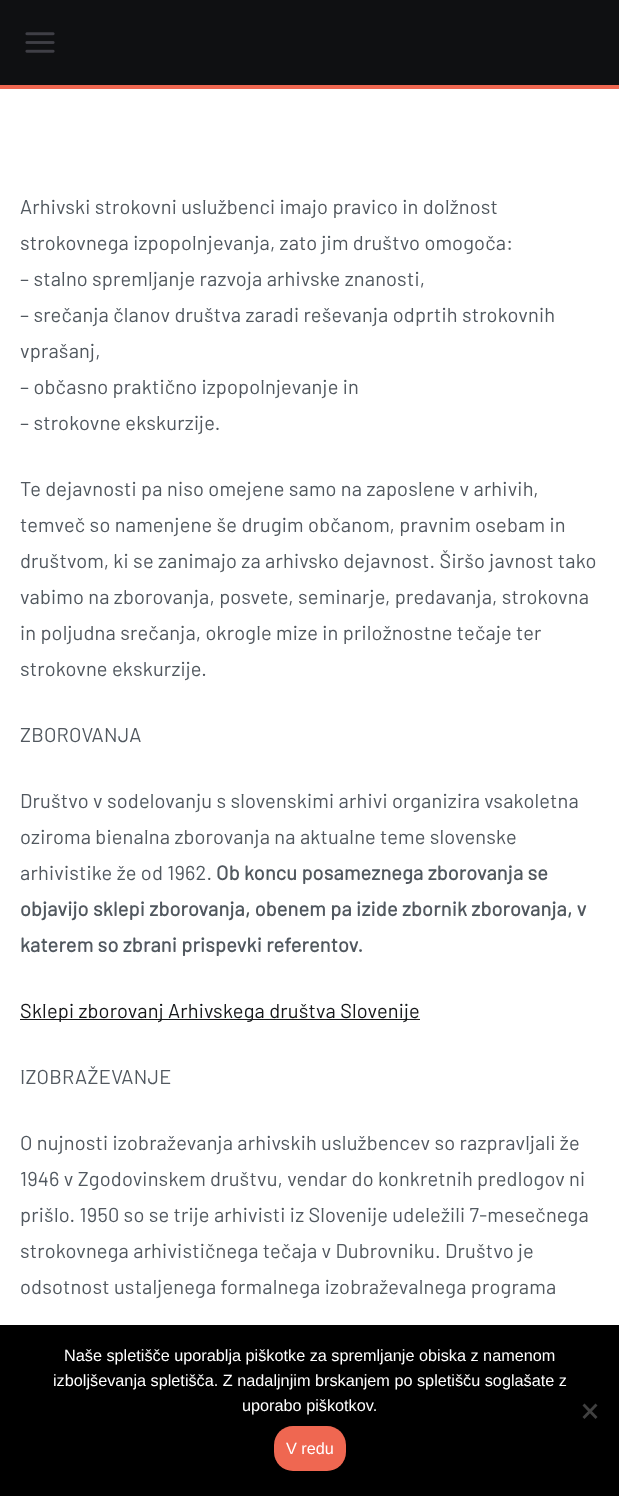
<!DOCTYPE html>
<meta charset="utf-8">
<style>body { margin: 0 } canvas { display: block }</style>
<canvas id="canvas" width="619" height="1496"></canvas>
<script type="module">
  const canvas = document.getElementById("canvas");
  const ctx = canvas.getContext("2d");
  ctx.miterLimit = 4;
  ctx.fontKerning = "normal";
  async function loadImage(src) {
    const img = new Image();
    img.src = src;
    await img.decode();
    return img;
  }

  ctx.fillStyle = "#ef6751";
  ctx.fillRect(0, 0, 619, 1496);
  ctx.fillStyle = "#0f1012";
  ctx.fillRect(0, 0, 619, 85);
  ctx.drawImage(await loadImage("img1.png"), 25, 32, 30, 21);
  ctx.fillStyle = "#ffffff";
  ctx.fillRect(0, 89, 619, 1236);
  ctx.letterSpacing = "0.2px";
  ctx.font = "20px Barlow";
  ctx.fillStyle = "#51585f";
  ctx.fillText("Arhivski strokovni uslužbenci imajo pravico in dolžnost", 20, 214);
  ctx.fillText("strokovnega izpopolnjevanja, zato jim društvo omogoča:", 20, 250);
  ctx.fillText("– stalno spremljanje razvoja arhivske znanosti,", 20, 286);
  ctx.fillText("– srečanja članov društva zaradi reševanja odprtih strokovnih", 20, 322);
  ctx.fillText("vprašanj,", 20, 358);
  ctx.fillText("– občasno praktično izpopolnjevanje in", 20, 394);
  ctx.fillText("– strokovne ekskurzije.", 20, 430);
  ctx.fillText("Te dejavnosti pa niso omejene samo na zaposlene v arhivih,", 20, 496);
  ctx.fillText("temveč so namenjene še drugim občanom, pravnim osebam in", 20, 532);
  ctx.fillText("društvom, ki se zanimajo za arhivsko dejavnost. Širšo javnost tako", 20, 568);
  ctx.fillText("vabimo na zborovanja, posvete, seminarje, predavanja, strokovna", 20, 604);
  ctx.fillText("in poljudna srečanja, okrogle mize in priložnostne tečaje ter", 20, 640);
  ctx.fillText("strokovne ekskurzije.", 20, 676);
  ctx.fillText("ZBOROVANJA", 20, 742);
  ctx.fillText("Društvo v sodelovanju s slovenskimi arhivi organizira vsakoletna", 20, 808);
  ctx.fillText("oziroma bienalna zborovanja na aktualne teme slovenske", 20, 844);
  ctx.fillText("arhivistike že od 1962.", 20, 880);
  ctx.font = "bold 20px Barlow";
  ctx.fillText("Ob koncu posameznega zborovanja se", 216, 880);
  ctx.fillText("objavijo sklepi zborovanja, obenem pa izide zbornik zborovanja, v", 20, 916);
  ctx.fillText("katerem so zbrani prispevki referentov.", 20, 952);
  ctx.fillStyle = "#16181a";
  ctx.fillRect(20, 1019, 400, 1);
  ctx.font = "20px Barlow";
  ctx.fillText("Sklepi zborovanj Arhivskega društva Slovenije", 20, 1018);
  ctx.fillStyle = "#51585f";
  ctx.fillText("IZOBRAŽEVANJE", 20, 1084);
  ctx.fillText("O nujnosti izobraževanja arhivskih uslužbencev so razpravljali že", 20, 1150);
  ctx.fillText("1946 v Zgodovinskem društvu, vendar do konkretnih predlogov ni", 20, 1186);
  ctx.fillText("prišlo. 1950 so se trije arhivisti iz Slovenije udeležili 7-mesečnega", 20, 1222);
  ctx.fillText("strokovnega arhivističnega tečaja v Dubrovniku. Društvo je", 20, 1258);
  ctx.fillText("odsotnost ustaljenega formalnega izobraževalnega programa", 20, 1294);
  ctx.fillStyle = "#000000";
  ctx.fillRect(0, 1325, 619, 171);
  ctx.letterSpacing = "0px";
  ctx.font = "16.25px Liberation Sans";
  ctx.fillStyle = "#ffffff";
  ctx.fillText("Naše spletišče uporablja piškotke za spremljanje obiska z namenom", 64, 1361);
  ctx.fillText("izboljševanja spletišča. Z nadaljnjim brskanjem po spletišču soglašate z", 53, 1386);
  ctx.fillText("uporabo piškotkov.", 242, 1411);
  ctx.fillStyle = "#404040";
  ctx.beginPath();
  ctx.moveTo(595.5, 1403.5);
  ctx.lineTo(597.5, 1405.5);
  ctx.lineTo(584.5, 1419);
  ctx.lineTo(582.5, 1417);
  ctx.closePath();
  ctx.fill();
  ctx.beginPath();
  ctx.moveTo(582.5, 1405.5);
  ctx.lineTo(584.5, 1403.5);
  ctx.lineTo(597.5, 1417);
  ctx.lineTo(595.5, 1419);
  ctx.closePath();
  ctx.fill();
  ctx.fillStyle = "#ef6751";
  ctx.beginPath();
  ctx.roundRect(274, 1426, 72, 45, 19);
  ctx.fill();
  ctx.fillStyle = "#ffffff";
  ctx.fillText("V redu", 286, 1454);
</script>
